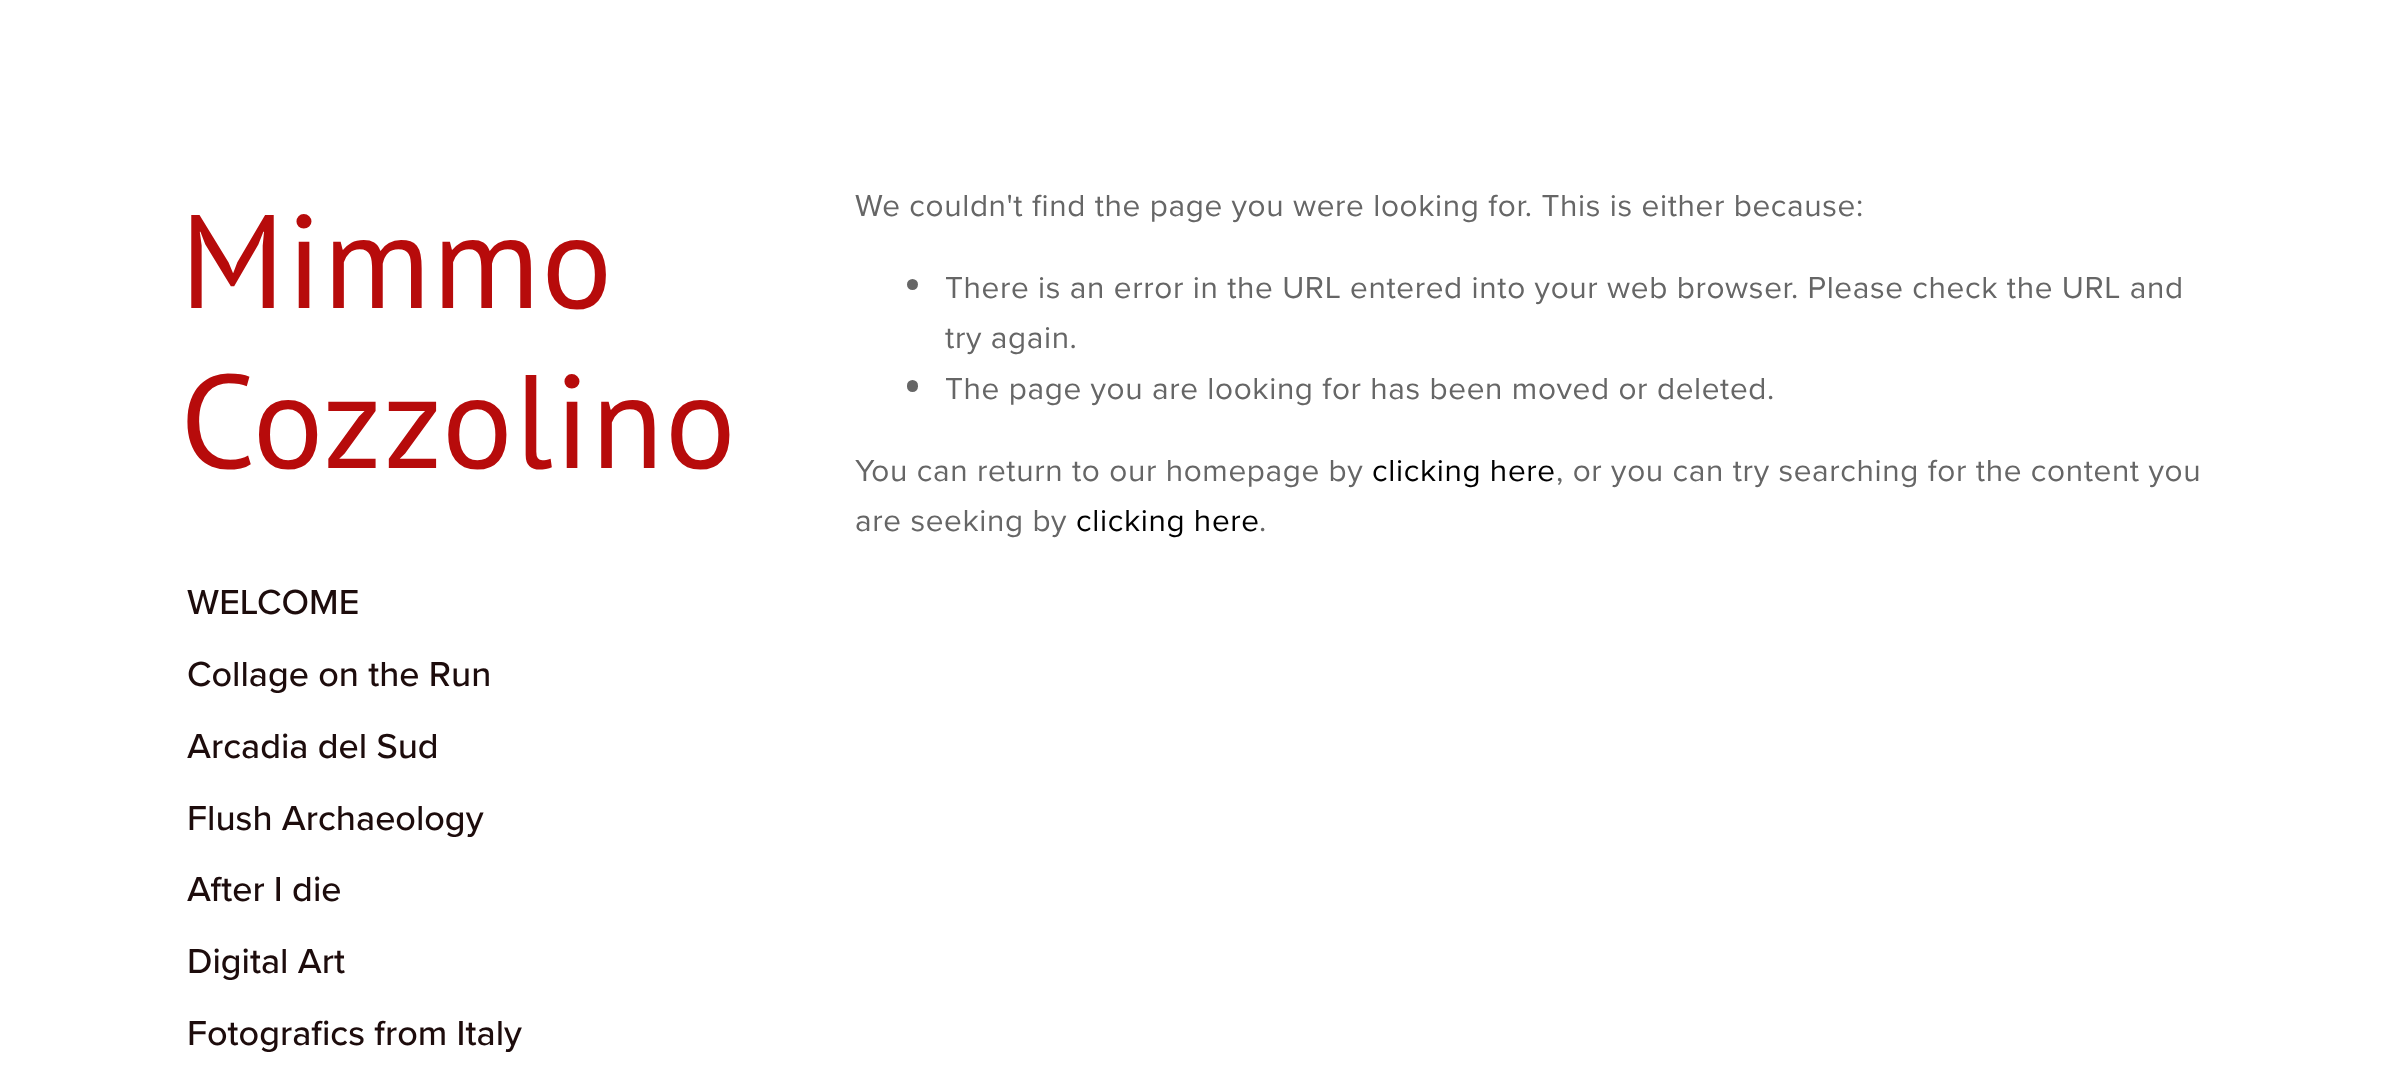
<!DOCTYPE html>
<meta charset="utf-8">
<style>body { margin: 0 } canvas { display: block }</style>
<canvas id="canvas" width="2393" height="1081"></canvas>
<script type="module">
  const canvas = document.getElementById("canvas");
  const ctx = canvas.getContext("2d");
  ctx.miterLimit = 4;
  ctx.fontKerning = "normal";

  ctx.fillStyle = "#ffffff";
  ctx.fillRect(0, 0, 2393, 1081);
  ctx.letterSpacing = "1.25px";
  ctx.font = "132.75px PT Sans";
  ctx.fillStyle = "#b70b0b";
  ctx.fillText("Mimmo", 180, 308);
  ctx.fillText("Cozzolino", 180, 468);
  ctx.letterSpacing = "0px";
  ctx.font = "500 36px Proxima Nova";
  ctx.fillStyle = "#1d0c0c";
  ctx.fillText("WELCOME", 187, 614);
  ctx.fillText("Collage on the Run", 187, 686);
  ctx.fillText("Arcadia del Sud", 187, 758);
  ctx.fillText("Flush Archaeology", 187, 830);
  ctx.fillText("After I die", 187, 901);
  ctx.fillText("Digital Art", 187, 973);
  ctx.fillText("Fotografics from Italy", 187, 1045);
  ctx.letterSpacing = "0.63px";
  ctx.font = "31.5px Proxima Nova";
  ctx.fillStyle = "#666666";
  ctx.fillText("We couldn't find the page you were looking for. This is either because:", 855, 216);
  ctx.beginPath();
  ctx.arc(912.5, 284.5, 5.5, 0, Math.PI * 2);
  ctx.fill();
  ctx.fillText("There is an error in the URL entered into your web browser. Please check the URL and", 945, 298);
  ctx.fillText("try again.", 945, 348);
  ctx.beginPath();
  ctx.roundRect(907, 380, 11, 12, 5.5);
  ctx.fill();
  ctx.fillText("The page you are looking for has been moved or deleted.", 945, 399);
  ctx.fillText("You can return to our homepage by", 855, 481);
  ctx.fillStyle = "#000000";
  ctx.fillText("clicking here", 1372, 481);
  ctx.fillStyle = "#666666";
  ctx.fillText(", or you can try searching for the content you", 1556, 481);
  ctx.fillText("are seeking by", 855, 531);
  ctx.fillStyle = "#000000";
  ctx.fillText("clicking here", 1076, 531);
  ctx.fillStyle = "#666666";
  ctx.fillText(".", 1259, 531);
</script>
